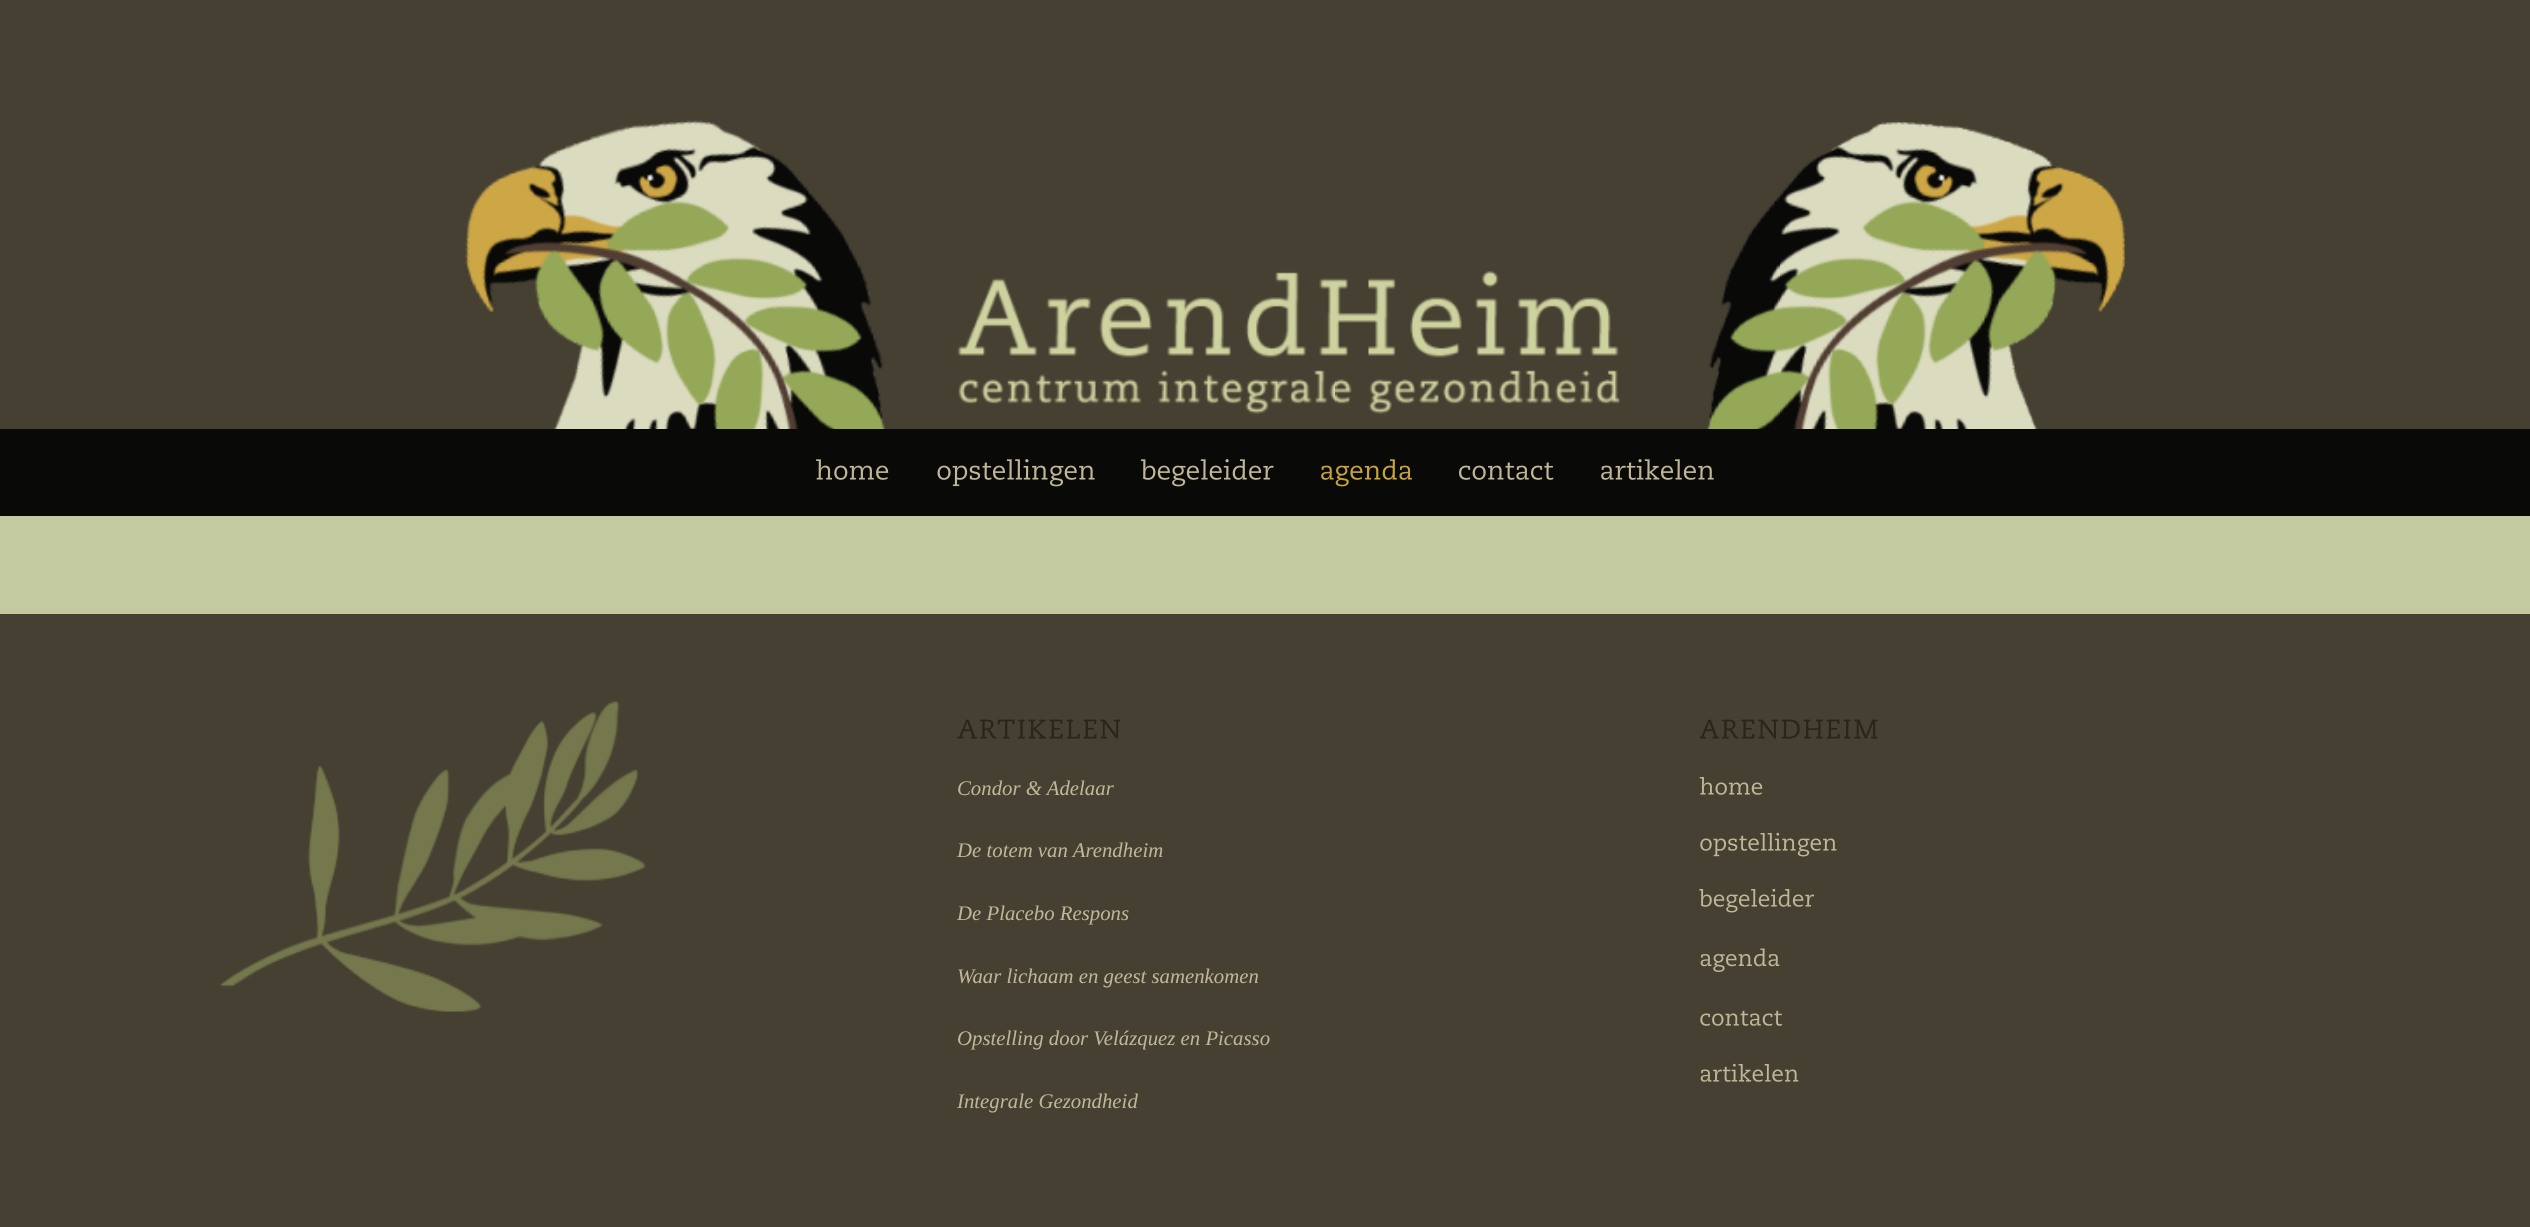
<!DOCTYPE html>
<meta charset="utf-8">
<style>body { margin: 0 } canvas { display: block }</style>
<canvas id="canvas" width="2530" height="1227"></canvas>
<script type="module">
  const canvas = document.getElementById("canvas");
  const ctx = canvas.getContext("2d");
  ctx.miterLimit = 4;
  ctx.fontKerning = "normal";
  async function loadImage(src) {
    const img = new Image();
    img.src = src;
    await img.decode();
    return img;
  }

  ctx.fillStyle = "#c3caa0";
  ctx.fillRect(0, 0, 2530, 1227);
  ctx.fillStyle = "#464032";
  ctx.fillRect(0, 0, 2530, 429);
  ctx.drawImage(await loadImage("img1.png"), 465, 120, 1661, 309);
  ctx.fillStyle = "#090908";
  ctx.fillRect(0, 429, 2530, 87);
  ctx.drawImage(await loadImage("img2.png"), 816, 459, 73, 21);
  ctx.drawImage(await loadImage("img3.png"), 937, 459, 158, 28);
  ctx.drawImage(await loadImage("img4.png"), 1141, 459, 133, 28);
  ctx.drawImage(await loadImage("img5.png"), 1321, 459, 91, 28);
  ctx.drawImage(await loadImage("img6.png"), 1459, 462, 95, 18);
  ctx.drawImage(await loadImage("img7.png"), 1601, 459, 113, 21);
  ctx.fillStyle = "#464032";
  ctx.fillRect(0, 614, 2530, 613);
  ctx.drawImage(await loadImage("img8.png"), 220, 701, 426, 311);
  ctx.drawImage(await loadImage("img9.png"), 957, 719, 164, 20);
  ctx.font = "italic 20.8px Liberation Serif";
  ctx.fillStyle = "#c0b798";
  ctx.fillText("Condor & Adelaar", 957, 795);
  ctx.fillText("De totem van Arendheim", 957, 857);
  ctx.fillText("De Placebo Respons", 957, 920);
  ctx.fillText("Waar lichaam en geest samenkomen", 957, 983);
  ctx.fillText("Opstelling door Velázquez en Picasso", 957, 1045);
  ctx.fillText("Integrale Gezondheid", 957, 1108);
  ctx.drawImage(await loadImage("img10.png"), 1699, 719, 179, 20);
  ctx.drawImage(await loadImage("img11.png"), 1699, 777, 64, 18);
  ctx.drawImage(await loadImage("img12.png"), 1700, 832, 137, 25);
  ctx.drawImage(await loadImage("img13.png"), 1699, 888, 116, 25);
  ctx.drawImage(await loadImage("img14.png"), 1700, 948, 80, 24);
  ctx.drawImage(await loadImage("img15.png"), 1700, 1010, 83, 16);
  ctx.drawImage(await loadImage("img16.png"), 1700, 1063, 99, 19);
</script>
